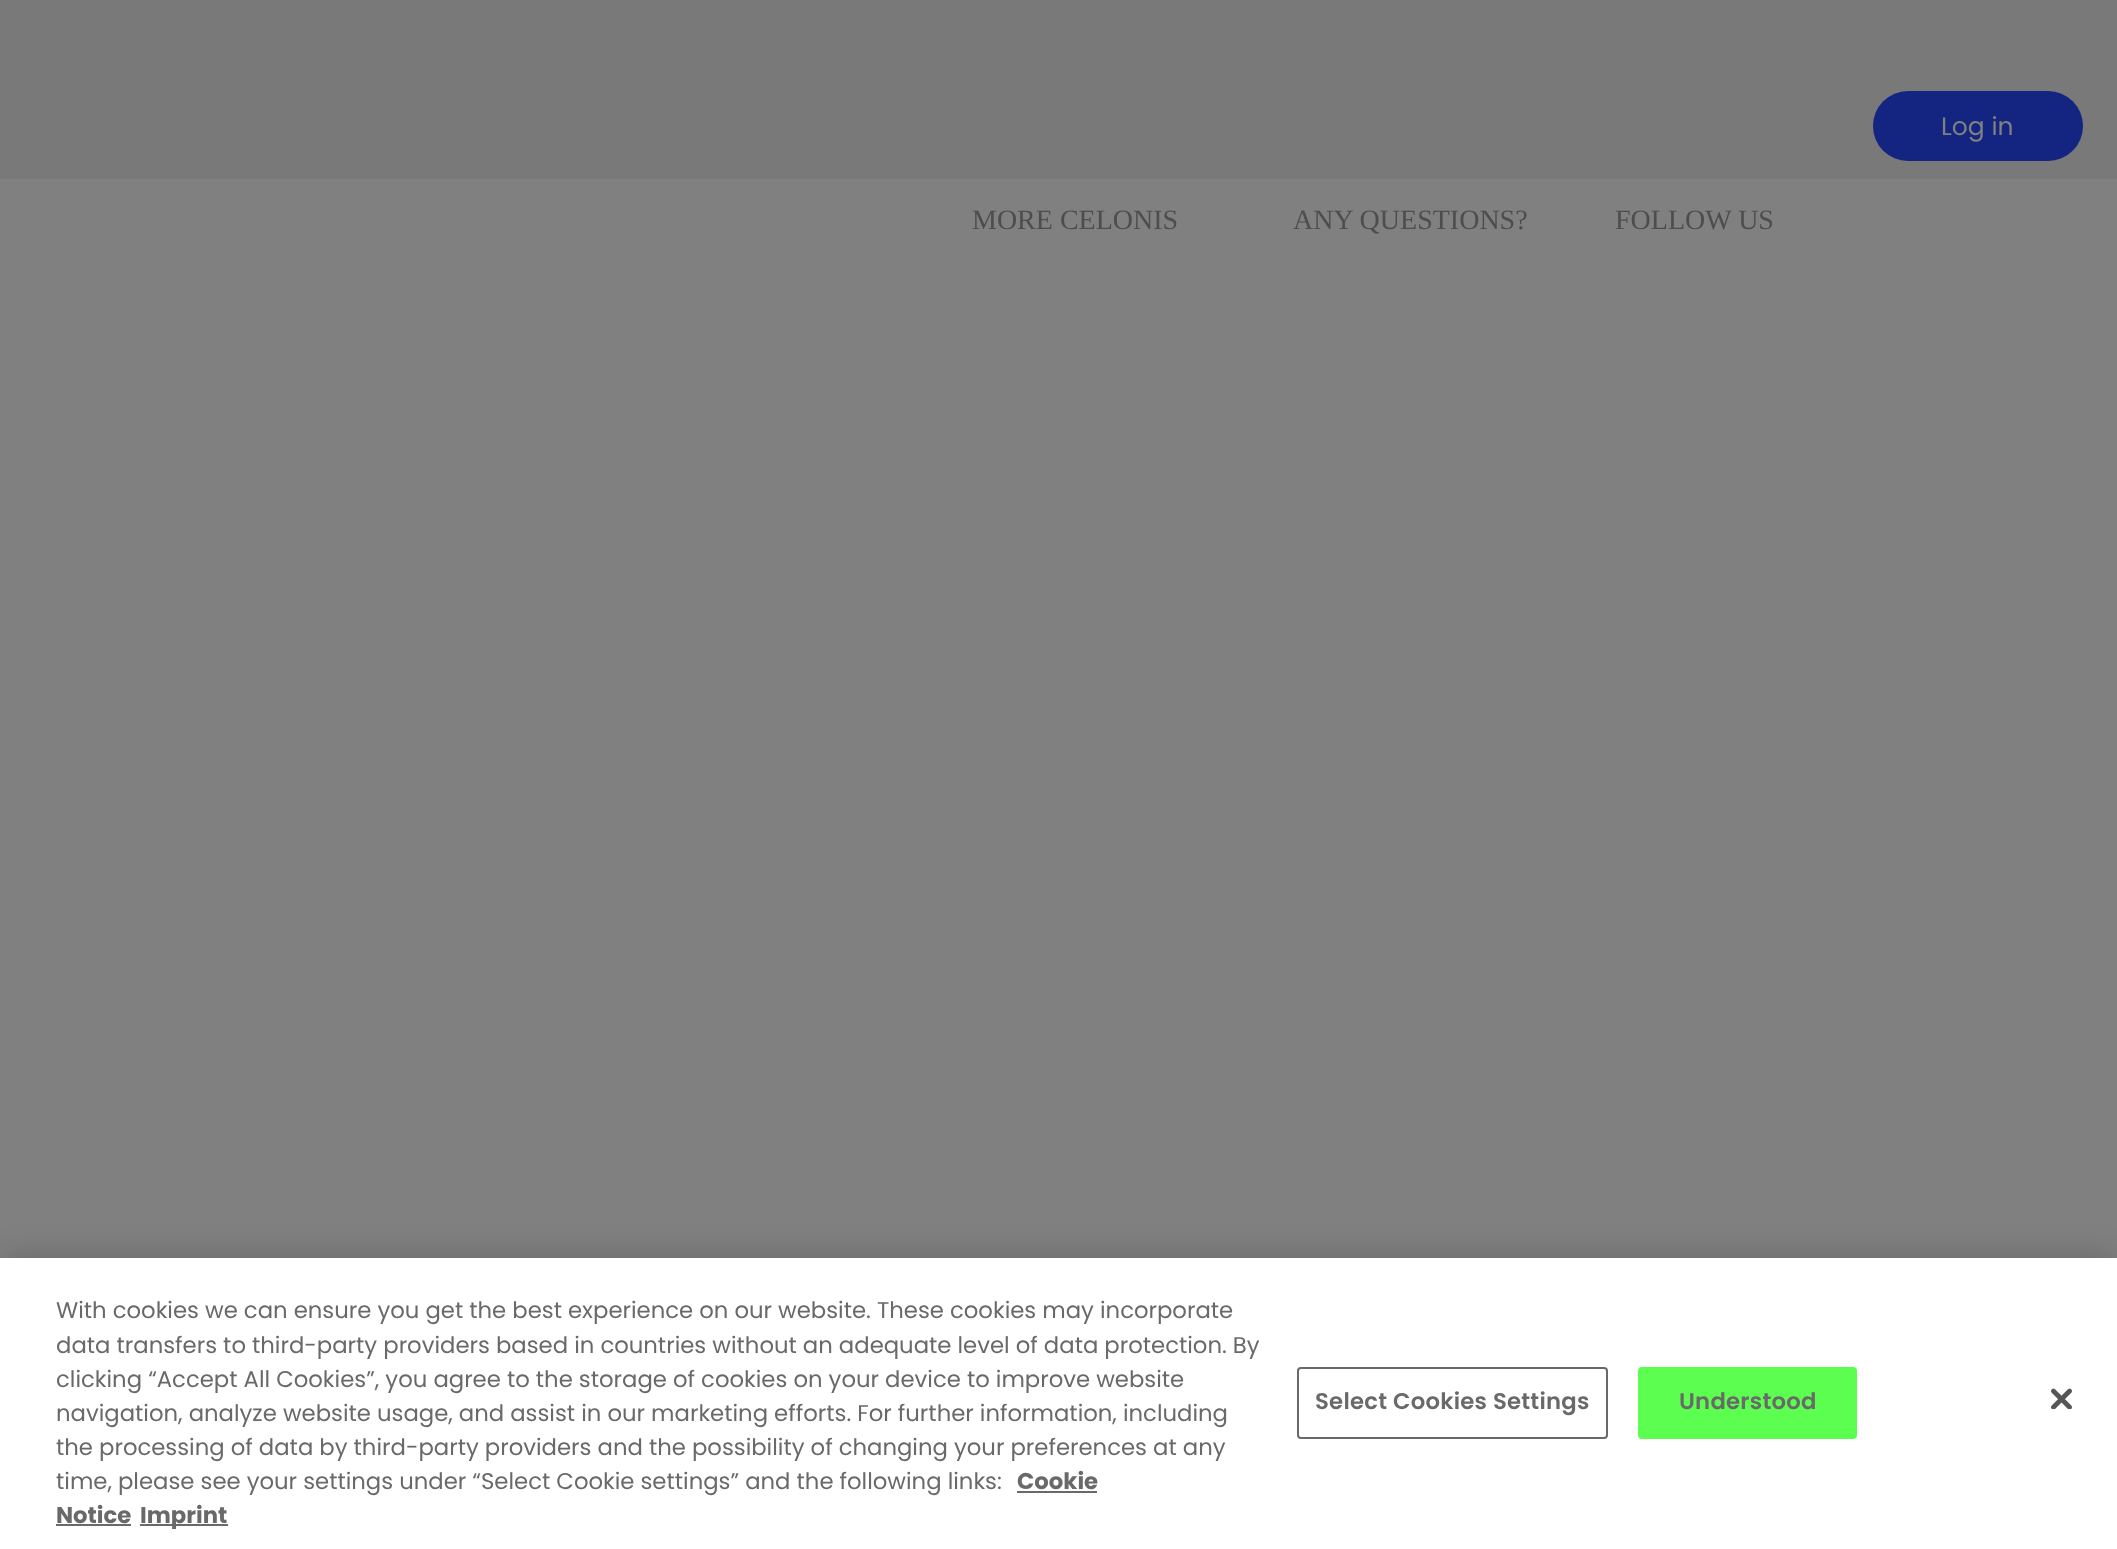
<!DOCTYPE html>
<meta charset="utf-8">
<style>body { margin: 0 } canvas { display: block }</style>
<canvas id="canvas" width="2117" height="1549"></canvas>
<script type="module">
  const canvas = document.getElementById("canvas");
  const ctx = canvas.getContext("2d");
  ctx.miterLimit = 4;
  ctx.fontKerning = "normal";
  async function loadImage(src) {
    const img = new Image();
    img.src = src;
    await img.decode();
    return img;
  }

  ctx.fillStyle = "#808080";
  ctx.fillRect(0, 0, 2117, 1549);
  ctx.fillStyle = "#797979";
  ctx.fillRect(0, 0, 2117, 179);
  ctx.fillStyle = "#132580";
  ctx.beginPath();
  ctx.roundRect(1873, 91, 210, 70, 35);
  ctx.fill();
  ctx.font = "25px Poppins";
  ctx.fillStyle = "#808080";
  ctx.fillText("Log in", 1941, 135);
  ctx.font = "28px Liberation Serif";
  ctx.fillStyle = "#4d4d4d";
  ctx.fillText("MORE CELONIS", 972, 229);
  ctx.fillText("ANY QUESTIONS?", 1293, 229);
  ctx.fillText("FOLLOW US", 1615, 229);
  ctx.fillStyle = "rgba(0, 0, 0, 0.2)";
  ctx.filter = "blur(16px)";
  ctx.beginPath();
  ctx.rect(0, 1258, 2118, 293);
  ctx.fill();
  ctx.filter = "none";
  ctx.fillStyle = "#ffffff";
  ctx.fillRect(0, 1258, 2117, 291);
  ctx.font = "22.75px Poppins";
  ctx.fillStyle = "#696969";
  ctx.fillText("With cookies we can ensure you get the best experience on our website. These cookies may incorporate", 56, 1318);
  ctx.fillText("data transfers to third-party providers based in countries without an adequate level of data protection. By", 56, 1353);
  ctx.fillText("clicking “Accept All Cookies”, you agree to the storage of cookies on your device to improve website", 56, 1387);
  ctx.fillText("navigation, analyze website usage, and assist in our marketing efforts. For further information, including", 56, 1421);
  ctx.fillText("the processing of data by third-party providers and the possibility of changing your preferences at any", 56, 1455);
  ctx.fillText("time, please see your settings under “Select Cookie settings” and the following links:", 56, 1489);
  ctx.font = "bold 22.75px Poppins";
  ctx.fillText("Cookie", 1017, 1489);
  ctx.fillRect(1017, 1491, 80, 2);
  ctx.fillText("Notice", 56, 1523);
  ctx.fillRect(56, 1524, 75, 2);
  ctx.fillRect(140, 1524, 88, 2);
  ctx.fillText("Imprint", 140, 1523);
  ctx.beginPath();
  ctx.roundRect(1298, 1368, 309, 70, 3);
  ctx.strokeStyle = "#696969";
  ctx.lineWidth = 2;
  ctx.stroke();
  ctx.letterSpacing = "0.25px";
  ctx.font = "600 22.75px Poppins";
  ctx.fillText("Select Cookies Settings", 1315, 1409);
  ctx.fillStyle = "#5cfe50";
  ctx.beginPath();
  ctx.roundRect(1639, 1368, 217, 70, 3);
  ctx.fill();
  ctx.strokeStyle = "#5cfe50";
  ctx.stroke();
  ctx.fillStyle = "#696969";
  ctx.fillText("Understood", 1679, 1409);
  ctx.drawImage(await loadImage("img1.png"), 2051, 1388, 21, 21);
</script>
